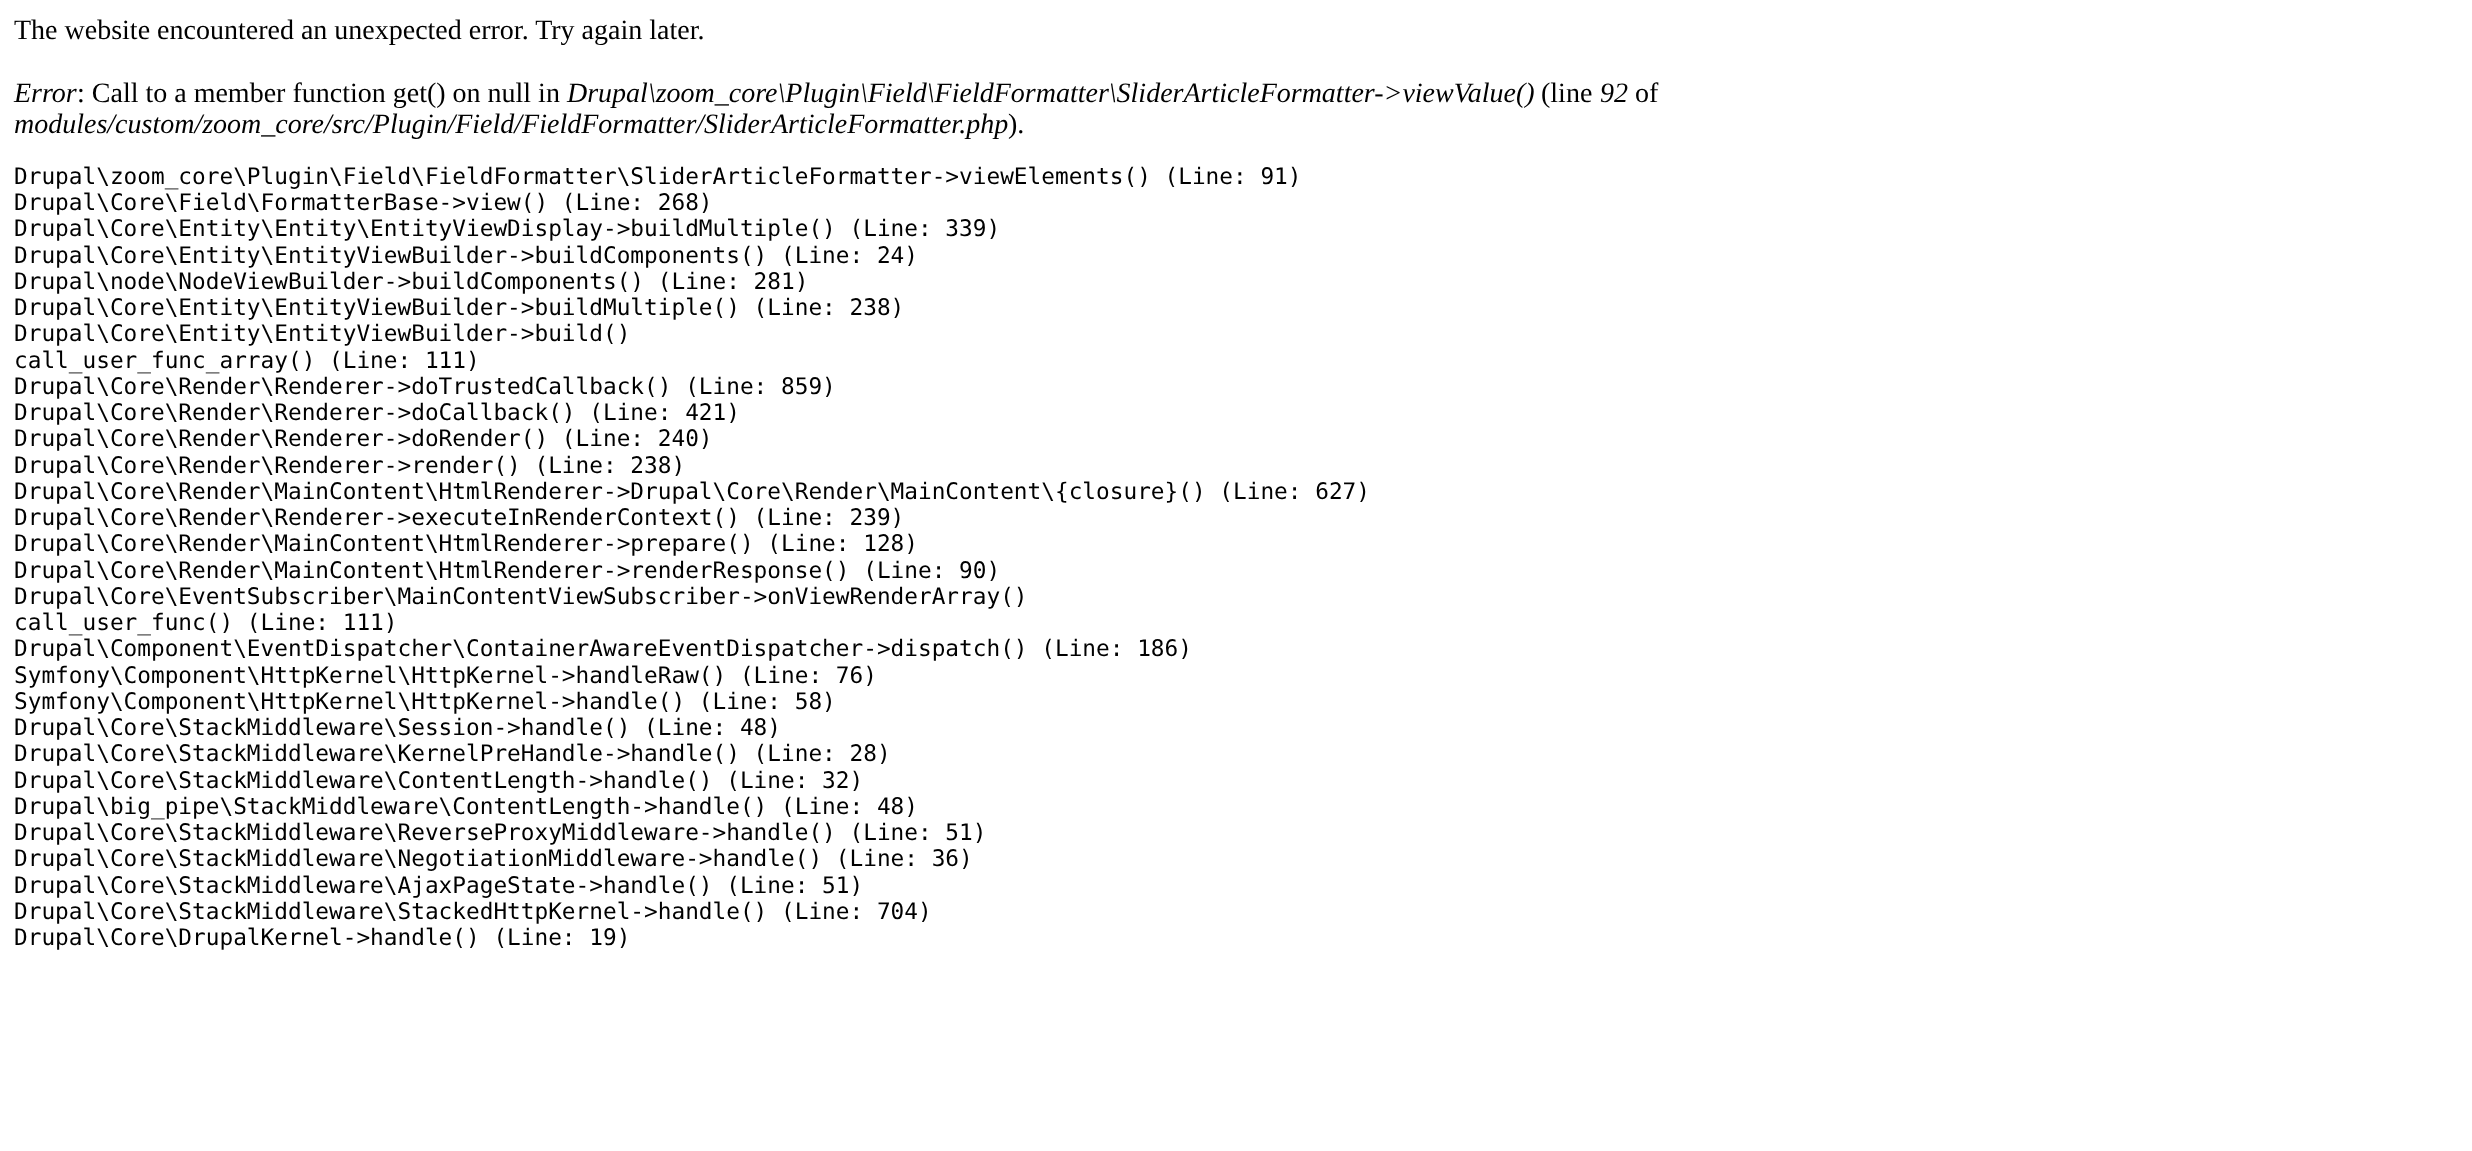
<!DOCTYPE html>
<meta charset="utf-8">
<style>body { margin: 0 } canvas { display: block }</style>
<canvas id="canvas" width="2472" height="1151"></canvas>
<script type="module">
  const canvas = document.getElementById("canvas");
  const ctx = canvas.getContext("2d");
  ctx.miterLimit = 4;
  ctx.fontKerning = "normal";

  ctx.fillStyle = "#ffffff";
  ctx.fillRect(0, 0, 2472, 1151);
  ctx.font = "28px Liberation Serif";
  ctx.fillStyle = "#000000";
  ctx.fillText("The website encountered an unexpected error. Try again later.", 14, 39);
  ctx.font = "italic 28px Liberation Serif";
  ctx.fillText("Error", 14, 102);
  ctx.font = "28px Liberation Serif";
  ctx.fillText(": Call to a member function get() on null in", 77, 102);
  ctx.font = "italic 28px Liberation Serif";
  ctx.fillText("Drupal\\zoom_core\\Plugin\\Field\\FieldFormatter\\SliderArticleFormatter->viewValue()", 567, 102);
  ctx.font = "28px Liberation Serif";
  ctx.fillText("(line", 1541, 102);
  ctx.font = "italic 28px Liberation Serif";
  ctx.fillText("92", 1600, 102);
  ctx.font = "28px Liberation Serif";
  ctx.fillText("of", 1635, 102);
  ctx.font = "italic 28px Liberation Serif";
  ctx.fillText("modules/custom/zoom_core/src/Plugin/Field/FieldFormatter/SliderArticleFormatter.php", 14, 133);
  ctx.font = "28px Liberation Serif";
  ctx.fillText(").", 1008, 133);
  ctx.font = "22.75px DejaVu Sans Mono";
  ctx.fillText("Drupal\\zoom_core\\Plugin\\Field\\FieldFormatter\\SliderArticleFormatter->viewElements() (Line: 91)", 14, 184);
  ctx.fillText("Drupal\\Core\\Field\\FormatterBase->view() (Line: 268)", 14, 210);
  ctx.fillText("Drupal\\Core\\Entity\\Entity\\EntityViewDisplay->buildMultiple() (Line: 339)", 14, 236);
  ctx.fillText("Drupal\\Core\\Entity\\EntityViewBuilder->buildComponents() (Line: 24)", 14, 263);
  ctx.fillText("Drupal\\node\\NodeViewBuilder->buildComponents() (Line: 281)", 14, 289);
  ctx.fillText("Drupal\\Core\\Entity\\EntityViewBuilder->buildMultiple() (Line: 238)", 14, 315);
  ctx.fillText("Drupal\\Core\\Entity\\EntityViewBuilder->build()", 14, 341);
  ctx.fillText("call_user_func_array() (Line: 111)", 14, 368);
  ctx.fillText("Drupal\\Core\\Render\\Renderer->doTrustedCallback() (Line: 859)", 14, 394);
  ctx.fillText("Drupal\\Core\\Render\\Renderer->doCallback() (Line: 421)", 14, 420);
  ctx.fillText("Drupal\\Core\\Render\\Renderer->doRender() (Line: 240)", 14, 446);
  ctx.fillText("Drupal\\Core\\Render\\Renderer->render() (Line: 238)", 14, 473);
  ctx.fillText("Drupal\\Core\\Render\\MainContent\\HtmlRenderer->Drupal\\Core\\Render\\MainContent\\{closure}() (Line: 627)", 14, 499);
  ctx.fillText("Drupal\\Core\\Render\\Renderer->executeInRenderContext() (Line: 239)", 14, 525);
  ctx.fillText("Drupal\\Core\\Render\\MainContent\\HtmlRenderer->prepare() (Line: 128)", 14, 551);
  ctx.fillText("Drupal\\Core\\Render\\MainContent\\HtmlRenderer->renderResponse() (Line: 90)", 14, 578);
  ctx.fillText("Drupal\\Core\\EventSubscriber\\MainContentViewSubscriber->onViewRenderArray()", 14, 604);
  ctx.fillText("call_user_func() (Line: 111)", 14, 630);
  ctx.fillText("Drupal\\Component\\EventDispatcher\\ContainerAwareEventDispatcher->dispatch() (Line: 186)", 14, 656);
  ctx.fillText("Symfony\\Component\\HttpKernel\\HttpKernel->handleRaw() (Line: 76)", 14, 683);
  ctx.fillText("Symfony\\Component\\HttpKernel\\HttpKernel->handle() (Line: 58)", 14, 709);
  ctx.fillText("Drupal\\Core\\StackMiddleware\\Session->handle() (Line: 48)", 14, 735);
  ctx.fillText("Drupal\\Core\\StackMiddleware\\KernelPreHandle->handle() (Line: 28)", 14, 761);
  ctx.fillText("Drupal\\Core\\StackMiddleware\\ContentLength->handle() (Line: 32)", 14, 788);
  ctx.fillText("Drupal\\big_pipe\\StackMiddleware\\ContentLength->handle() (Line: 48)", 14, 814);
  ctx.fillText("Drupal\\Core\\StackMiddleware\\ReverseProxyMiddleware->handle() (Line: 51)", 14, 840);
  ctx.fillText("Drupal\\Core\\StackMiddleware\\NegotiationMiddleware->handle() (Line: 36)", 14, 866);
  ctx.fillText("Drupal\\Core\\StackMiddleware\\AjaxPageState->handle() (Line: 51)", 14, 893);
  ctx.fillText("Drupal\\Core\\StackMiddleware\\StackedHttpKernel->handle() (Line: 704)", 14, 919);
  ctx.fillText("Drupal\\Core\\DrupalKernel->handle() (Line: 19)", 14, 945);
</script>
